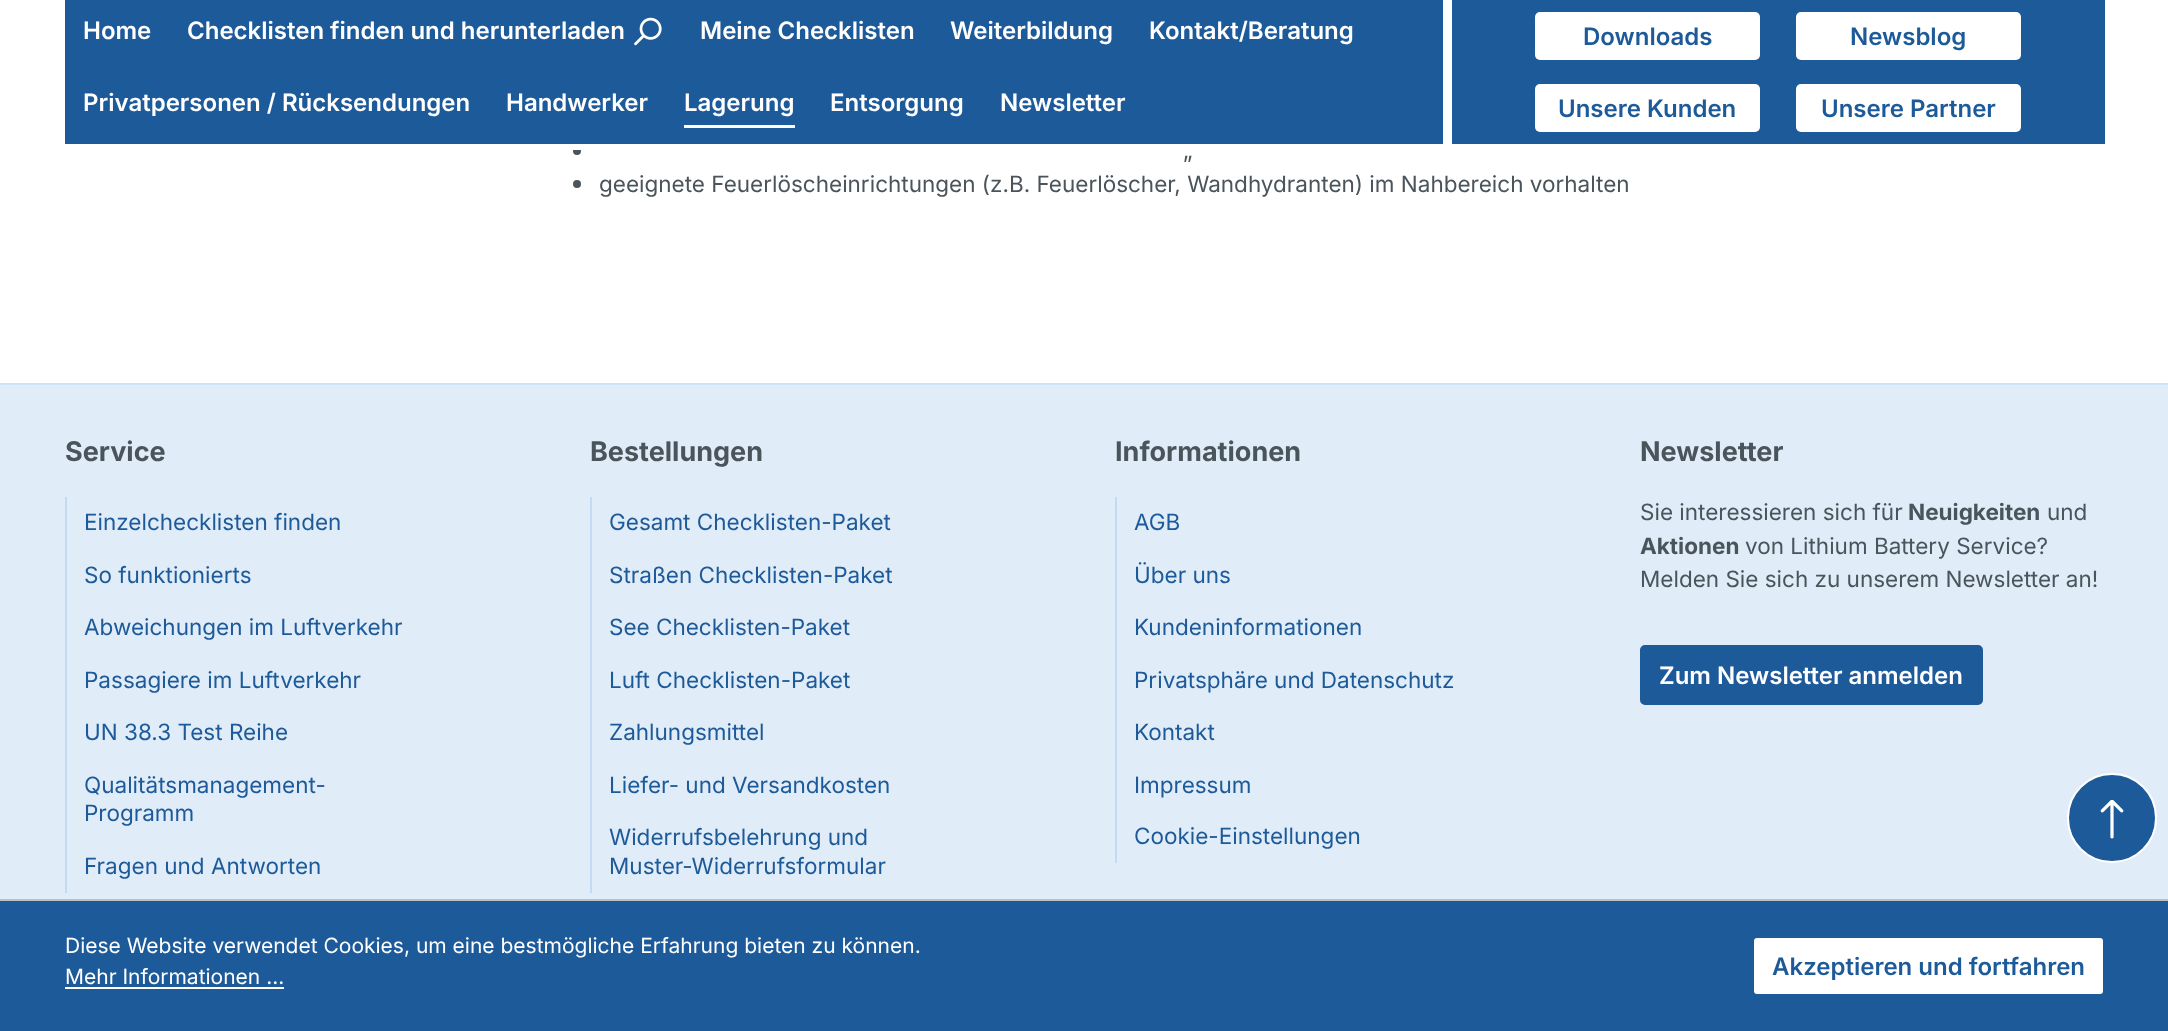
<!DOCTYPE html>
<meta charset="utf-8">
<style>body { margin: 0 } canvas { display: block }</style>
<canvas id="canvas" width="2168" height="1031"></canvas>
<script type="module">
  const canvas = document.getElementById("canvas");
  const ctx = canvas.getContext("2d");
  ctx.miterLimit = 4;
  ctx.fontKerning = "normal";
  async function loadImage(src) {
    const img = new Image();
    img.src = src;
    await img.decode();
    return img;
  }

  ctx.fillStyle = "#ffffff";
  ctx.fillRect(0, 0, 2168, 1031);
  ctx.fillStyle = "#4a545b";
  ctx.beginPath();
  ctx.arc(577, 151, 4, 0, Math.PI * 2);
  ctx.fill();
  ctx.fillStyle = "#ffffff";
  ctx.fillRect(573, 147, 8, 3);
  ctx.fillStyle = "#1d5a99";
  ctx.fillRect(65, 0, 2040, 144);
  ctx.fillStyle = "#ffffff";
  ctx.fillRect(1443, 0, 9, 144);
  ctx.font = "600 24px Inter";
  ctx.fillText("Home", 83, 39);
  ctx.fillText("Checklisten finden und herunterladen", 187, 39);
  ctx.drawImage(await loadImage("img1.png"), 634, 17, 28, 29);
  ctx.fillText("Meine Checklisten", 700, 39);
  ctx.fillText("Weiterbildung", 950, 39);
  ctx.fillText("Kontakt/Beratung", 1149, 39);
  ctx.fillText("Privatpersonen / Rücksendungen", 83, 111);
  ctx.fillText("Handwerker", 506, 111);
  ctx.fillRect(684, 125, 111, 3);
  ctx.fillText("Lagerung", 684, 111);
  ctx.fillText("Entsorgung", 830, 111);
  ctx.fillText("Newsletter", 1000, 111);
  ctx.beginPath();
  ctx.roundRect(1535, 12, 225, 48, 5);
  ctx.fill();
  ctx.fillStyle = "#1d5a99";
  ctx.fillText("Downloads", 1583, 45);
  ctx.fillStyle = "#ffffff";
  ctx.beginPath();
  ctx.roundRect(1796, 12, 225, 48, 5);
  ctx.fill();
  ctx.fillStyle = "#1d5a99";
  ctx.fillText("Newsblog", 1850, 45);
  ctx.fillStyle = "#ffffff";
  ctx.beginPath();
  ctx.roundRect(1535, 84, 225, 48, 5);
  ctx.fill();
  ctx.fillStyle = "#1d5a99";
  ctx.fillText("Unsere Kunden", 1558, 117);
  ctx.fillStyle = "#ffffff";
  ctx.beginPath();
  ctx.roundRect(1796, 84, 225, 48, 5);
  ctx.fill();
  ctx.fillStyle = "#1d5a99";
  ctx.fillText("Unsere Partner", 1821, 117);
  ctx.font = "22.5px Inter";
  ctx.fillStyle = "#4a545b";
  ctx.fillText("„", 1183, 158);
  ctx.beginPath();
  ctx.arc(577, 184, 4, 0, Math.PI * 2);
  ctx.fill();
  ctx.fillText("geeignete Feuerlöscheinrichtungen (z.B. Feuerlöscher, Wandhydranten) im Nahbereich vorhalten", 599, 192);
  ctx.fillStyle = "#e0ecf8";
  ctx.fillRect(0, 385, 2168, 514);
  ctx.fillStyle = "#cee3f6";
  ctx.fillRect(0, 383, 2168, 2);
  ctx.font = "bold 27px Inter";
  ctx.fillStyle = "#4a545b";
  ctx.fillText("Service", 65, 461);
  ctx.fillStyle = "#c2daf3";
  ctx.fillRect(65, 497, 2, 396);
  ctx.font = "22.5px Inter";
  ctx.fillStyle = "#1d5a99";
  ctx.fillText("Einzelchecklisten finden", 84, 530);
  ctx.fillText("So funktionierts", 84, 583);
  ctx.fillText("Abweichungen im Luftverkehr", 84, 635);
  ctx.fillText("Passagiere im Luftverkehr", 84, 688);
  ctx.fillText("UN 38.3 Test Reihe", 84, 740);
  ctx.fillText("Qualitätsmanagement-", 84, 793);
  ctx.fillText("Programm", 84, 821);
  ctx.fillText("Fragen und Antworten", 84, 874);
  ctx.font = "bold 27px Inter";
  ctx.fillStyle = "#4a545b";
  ctx.fillText("Bestellungen", 590, 461);
  ctx.fillStyle = "#c2daf3";
  ctx.fillRect(590, 497, 2, 396);
  ctx.font = "22.5px Inter";
  ctx.fillStyle = "#1d5a99";
  ctx.fillText("Gesamt Checklisten-Paket", 609, 530);
  ctx.fillText("Straßen Checklisten-Paket", 609, 583);
  ctx.fillText("See Checklisten-Paket", 609, 635);
  ctx.fillText("Luft Checklisten-Paket", 609, 688);
  ctx.fillText("Zahlungsmittel", 609, 740);
  ctx.fillText("Liefer- und Versandkosten", 609, 793);
  ctx.fillText("Widerrufsbelehrung und", 609, 845);
  ctx.fillText("Muster-Widerrufsformular", 609, 874);
  ctx.font = "bold 27px Inter";
  ctx.fillStyle = "#4a545b";
  ctx.fillText("Informationen", 1115, 461);
  ctx.fillStyle = "#c2daf3";
  ctx.fillRect(1115, 497, 2, 366);
  ctx.font = "22.5px Inter";
  ctx.fillStyle = "#1d5a99";
  ctx.fillText("AGB", 1134, 530);
  ctx.fillText("Über uns", 1134, 583);
  ctx.fillText("Kundeninformationen", 1134, 635);
  ctx.fillText("Privatsphäre und Datenschutz", 1134, 688);
  ctx.fillText("Kontakt", 1134, 740);
  ctx.fillText("Impressum", 1134, 793);
  ctx.fillText("Cookie-Einstellungen", 1134, 844);
  ctx.font = "bold 27px Inter";
  ctx.fillStyle = "#4a545b";
  ctx.fillText("Newsletter", 1640, 461);
  ctx.font = "22.5px Inter";
  ctx.fillText("Sie interessieren sich für", 1640, 520);
  ctx.font = "bold 22.5px Inter";
  ctx.fillText("Neuigkeiten", 1908, 520);
  ctx.font = "22.5px Inter";
  ctx.fillText("und", 2047, 520);
  ctx.font = "bold 22.5px Inter";
  ctx.fillText("Aktionen", 1640, 554);
  ctx.font = "22.5px Inter";
  ctx.fillText("von Lithium Battery Service?", 1745, 554);
  ctx.fillText("Melden Sie sich zu unserem Newsletter an!", 1640, 587);
  ctx.fillStyle = "#1d5a99";
  ctx.beginPath();
  ctx.roundRect(1641, 646, 341, 58, 4);
  ctx.fill();
  ctx.strokeStyle = "#1d5a99";
  ctx.lineWidth = 2;
  ctx.stroke();
  ctx.font = "600 24px Inter";
  ctx.fillStyle = "#ffffff";
  ctx.fillText("Zum Newsletter anmelden", 1659, 684);
  ctx.fillStyle = "#1d5a99";
  ctx.beginPath();
  ctx.arc(2112, 818, 44, 0, Math.PI * 2);
  ctx.fill();
  ctx.strokeStyle = "#ffffff";
  ctx.stroke();
  ctx.drawImage(await loadImage("img2.png"), 2100, 800, 24, 39);
  ctx.fillRect(0, 901, 2168, 130);
  ctx.fillStyle = "#bcc1c7";
  ctx.fillRect(0, 899, 2168, 2);
  ctx.font = "21px Inter";
  ctx.fillStyle = "#ffffff";
  ctx.fillText("Diese Website verwendet Cookies, um eine bestmögliche Erfahrung bieten zu können.", 65, 953);
  ctx.fillText("Mehr Informationen ...", 65, 984);
  ctx.fillRect(65, 987, 219, 2);
  ctx.beginPath();
  ctx.roundRect(1753, 937, 351, 58, 4);
  ctx.fill();
  ctx.strokeStyle = "#1d5a99";
  ctx.stroke();
  ctx.font = "600 24px Inter";
  ctx.fillStyle = "#1d5a99";
  ctx.fillText("Akzeptieren und fortfahren", 1772, 975);
</script>
